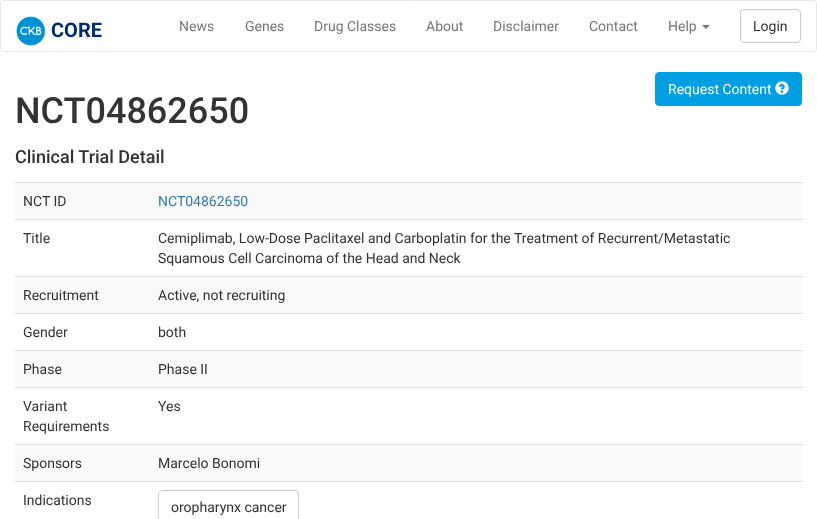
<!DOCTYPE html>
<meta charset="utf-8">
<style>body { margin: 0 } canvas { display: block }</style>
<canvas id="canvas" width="817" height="519"></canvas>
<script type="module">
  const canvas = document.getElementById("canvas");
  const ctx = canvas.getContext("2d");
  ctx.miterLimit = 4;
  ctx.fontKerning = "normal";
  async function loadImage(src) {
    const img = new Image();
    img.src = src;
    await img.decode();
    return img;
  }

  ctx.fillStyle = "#ffffff";
  ctx.fillRect(0, 0, 817, 519);
  ctx.beginPath();
  ctx.roundRect(0.5, 0.5, 816, 51, 3.5);
  ctx.strokeStyle = "#e7e7e7";
  ctx.stroke();
  ctx.drawImage(await loadImage("img1.png"), 16, 16, 30, 30);
  ctx.font = "bold 20px Roboto";
  ctx.fillStyle = "#002d72";
  ctx.fillText("CORE", 51, 37);
  ctx.font = "14px Roboto";
  ctx.fillStyle = "#777777";
  ctx.fillText("News", 179, 31);
  ctx.fillText("Genes", 245, 31);
  ctx.fillText("Drug Classes", 314, 31);
  ctx.fillText("About", 426, 31);
  ctx.fillText("Disclaimer", 493, 31);
  ctx.fillText("Contact", 589, 31);
  ctx.fillText("Help", 668, 31);
  ctx.beginPath();
  ctx.moveTo(702, 25);
  ctx.lineTo(710, 25);
  ctx.lineTo(706, 29);
  ctx.closePath();
  ctx.fill();
  ctx.beginPath();
  ctx.roundRect(740.5, 9.5, 60, 33, 3.5);
  ctx.strokeStyle = "#cccccc";
  ctx.stroke();
  ctx.fillStyle = "#333333";
  ctx.fillText("Login", 753, 31);
  ctx.fillStyle = "#009fe3";
  ctx.beginPath();
  ctx.roundRect(655.5, 72.5, 146, 33, 3.5);
  ctx.fill();
  ctx.strokeStyle = "#009fe3";
  ctx.stroke();
  ctx.fillStyle = "#ffffff";
  ctx.fillText("Request Content", 668, 94);
  ctx.drawImage(await loadImage("img2.png"), 775, 81, 14, 14);
  ctx.font = "500 36px Roboto";
  ctx.fillStyle = "#333333";
  ctx.fillText("NCT04862650", 15, 123);
  ctx.font = "500 18px Roboto";
  ctx.fillText("Clinical Trial Detail", 15, 163);
  ctx.fillStyle = "#f9f9f9";
  ctx.fillRect(15, 183, 787, 36);
  ctx.font = "14px Roboto";
  ctx.fillStyle = "#333333";
  ctx.fillText("NCT ID", 23, 206);
  ctx.fillStyle = "#dddddd";
  ctx.fillRect(15, 182, 788, 1);
  ctx.fillStyle = "#337ab7";
  ctx.fillText("NCT04862650", 158, 206);
  ctx.fillStyle = "#333333";
  ctx.fillText("Title", 23, 243);
  ctx.fillStyle = "#dddddd";
  ctx.fillRect(15, 219, 788, 1);
  ctx.fillStyle = "#333333";
  ctx.fillText("Cemiplimab, Low-Dose Paclitaxel and Carboplatin for the Treatment of Recurrent/Metastatic", 158, 243);
  ctx.fillText("Squamous Cell Carcinoma of the Head and Neck", 158, 263);
  ctx.fillStyle = "#f9f9f9";
  ctx.fillRect(15, 277, 787, 36);
  ctx.fillStyle = "#333333";
  ctx.fillText("Recruitment", 23, 300);
  ctx.fillStyle = "#dddddd";
  ctx.fillRect(15, 276, 788, 1);
  ctx.fillStyle = "#333333";
  ctx.fillText("Active, not recruiting", 158, 300);
  ctx.fillText("Gender", 23, 337);
  ctx.fillStyle = "#dddddd";
  ctx.fillRect(15, 313, 788, 1);
  ctx.fillStyle = "#333333";
  ctx.fillText("both", 158, 337);
  ctx.fillStyle = "#f9f9f9";
  ctx.fillRect(15, 351, 787, 36);
  ctx.fillStyle = "#333333";
  ctx.fillText("Phase", 23, 374);
  ctx.fillStyle = "#dddddd";
  ctx.fillRect(15, 350, 788, 1);
  ctx.fillStyle = "#333333";
  ctx.fillText("Phase II", 158, 374);
  ctx.fillText("Variant", 23, 411);
  ctx.fillText("Requirements", 23, 431);
  ctx.fillStyle = "#dddddd";
  ctx.fillRect(15, 387, 788, 1);
  ctx.fillStyle = "#333333";
  ctx.fillText("Yes", 158, 411);
  ctx.fillStyle = "#f9f9f9";
  ctx.fillRect(15, 445, 787, 36);
  ctx.fillStyle = "#333333";
  ctx.fillText("Sponsors", 23, 468);
  ctx.fillStyle = "#dddddd";
  ctx.fillRect(15, 444, 788, 1);
  ctx.fillStyle = "#333333";
  ctx.fillText("Marcelo Bonomi", 158, 468);
  ctx.fillText("Indications", 23, 505);
  ctx.fillStyle = "#dddddd";
  ctx.fillRect(15, 481, 788, 1);
  ctx.beginPath();
  ctx.roundRect(158.5, 490.5, 140, 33, 3.5);
  ctx.strokeStyle = "#cccccc";
  ctx.stroke();
  ctx.fillStyle = "#333333";
  ctx.fillText("oropharynx cancer", 171, 512);
</script>
